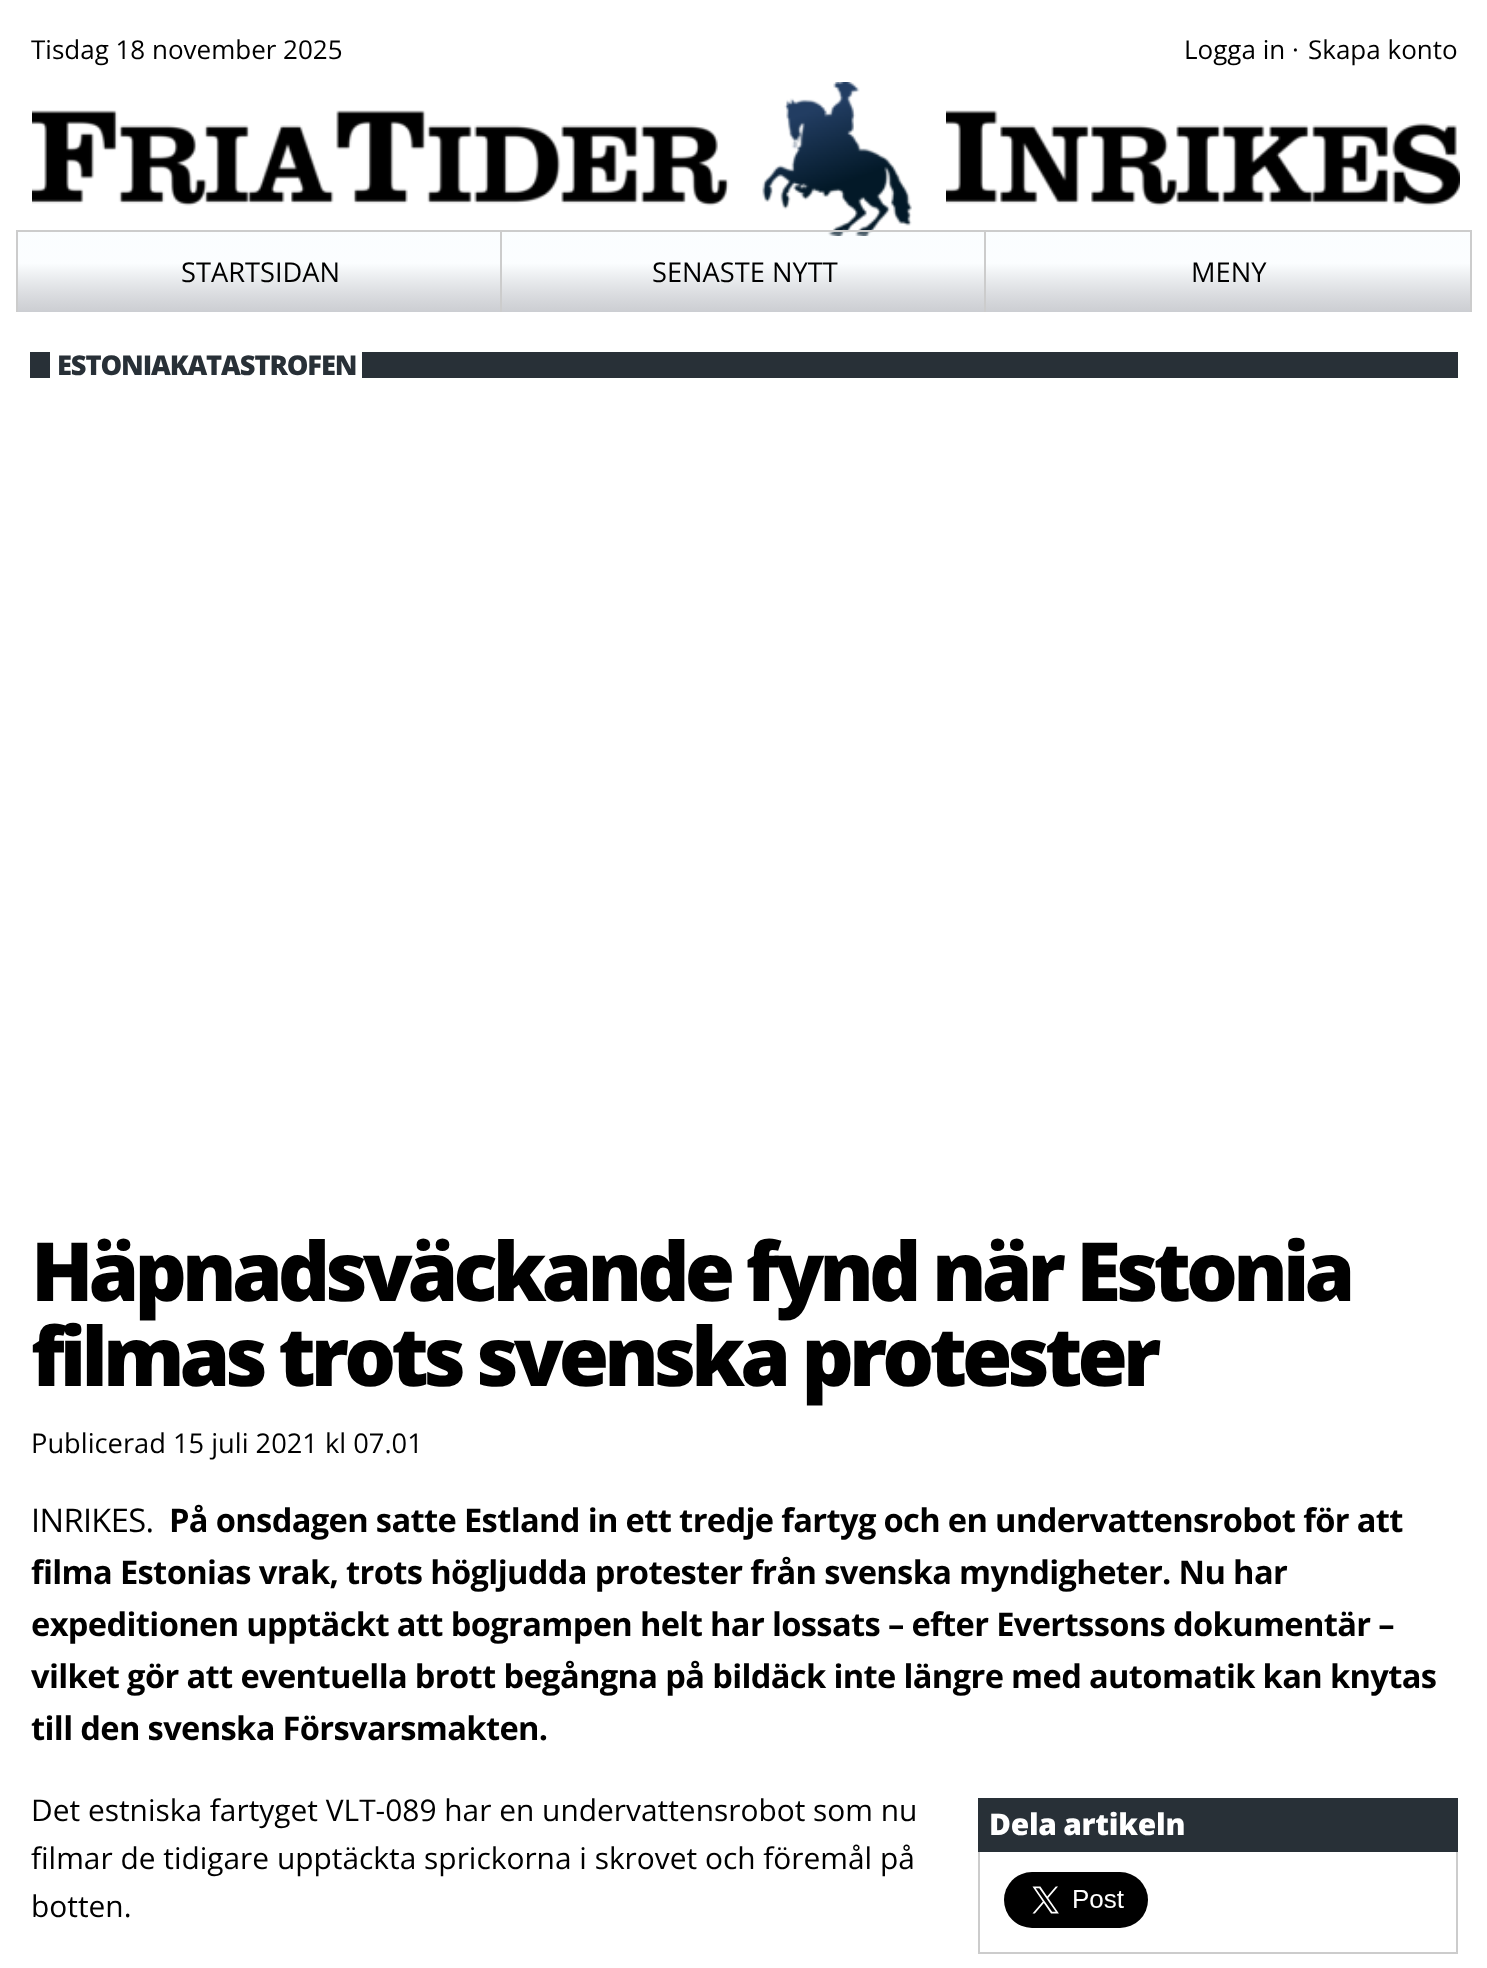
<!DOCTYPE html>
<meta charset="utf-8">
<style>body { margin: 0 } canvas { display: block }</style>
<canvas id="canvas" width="1487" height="1968"></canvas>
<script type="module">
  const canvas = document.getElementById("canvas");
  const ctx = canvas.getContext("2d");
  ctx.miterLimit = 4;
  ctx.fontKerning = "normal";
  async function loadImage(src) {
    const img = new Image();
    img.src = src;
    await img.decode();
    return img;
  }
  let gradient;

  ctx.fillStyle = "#ffffff";
  ctx.fillRect(0, 0, 1487, 1968);
  ctx.font = "26px Open Sans";
  ctx.fillStyle = "#000000";
  ctx.fillText("Tisdag 18 november 2025", 31, 59);
  ctx.fillText("Logga in", 1184, 59);
  ctx.fillText("·", 1292, 59);
  ctx.fillText("Skapa konto", 1308, 59);
  ctx.drawImage(await loadImage("img1.png"), 32, 82, 880, 154);
  ctx.drawImage(await loadImage("img2.png"), 946, 110, 514, 96);
  gradient = ctx.createLinearGradient(743, 232, 743, 312);
  gradient.addColorStop(0, "rgba(240, 249, 255, 0.3)");
  gradient.addColorStop(0.39, "rgba(240, 249, 255, 0.26)");
  gradient.addColorStop(1, "rgba(14, 23, 43, 0.21)");
  ctx.fillStyle = gradient;
  ctx.fillRect(18, 232, 1452, 80);
  ctx.fillStyle = "#cccccc";
  ctx.fillRect(16, 230, 1456, 2);
  ctx.fillRect(1470, 230, 2, 82);
  ctx.fillRect(16, 232, 2, 80);
  ctx.font = "27.25px Open Sans";
  ctx.fillStyle = "#000000";
  ctx.fillText("STARTSIDAN", 181, 282);
  ctx.fillStyle = "#cccccc";
  ctx.fillRect(500, 232, 2, 80);
  ctx.fillStyle = "#000000";
  ctx.fillText("SENASTE NYTT", 652, 282);
  ctx.fillStyle = "#cccccc";
  ctx.fillRect(984, 232, 2, 80);
  ctx.fillStyle = "#000000";
  ctx.fillText("MENY", 1191, 282);
  ctx.fillStyle = "#283037";
  ctx.fillRect(30, 352, 1428, 26);
  ctx.fillStyle = "#ffffff";
  ctx.fillRect(50, 352, 312, 26);
  ctx.letterSpacing = "-1.1px";
  ctx.font = "800 27.25px Open Sans";
  ctx.fillStyle = "#283037";
  ctx.fillText("ESTONIAKATASTROFEN", 57, 375);
  ctx.letterSpacing = "-4.9px";
  ctx.wordSpacing = "-1px";
  ctx.font = "800 81.6px Open Sans";
  ctx.fillStyle = "#000000";
  ctx.fillText("Häpnadsväckande fynd när Estonia", 31, 1301);
  ctx.fillText("filmas trots svenska protester", 31, 1386);
  ctx.letterSpacing = "0px";
  ctx.wordSpacing = "0px";
  ctx.font = "27.25px Open Sans";
  ctx.fillText("Publicerad 15 juli 2021 kl 07.01", 31, 1453);
  ctx.letterSpacing = "-0.65px";
  ctx.font = "32.65px Open Sans";
  ctx.fillText("INRIKES.", 31, 1532);
  ctx.font = "bold 32.65px Open Sans";
  ctx.fillText("På onsdagen satte Estland in ett tredje fartyg och en undervattensrobot för att", 169, 1532);
  ctx.fillText("filma Estonias vrak, trots högljudda protester från svenska myndigheter. Nu har", 31, 1584);
  ctx.fillText("expeditionen upptäckt att bogrampen helt har lossats – efter Evertssons dokumentär –", 31, 1636);
  ctx.fillText("vilket gör att eventuella brott begångna på bildäck inte längre med automatik kan knytas", 31, 1688);
  ctx.fillText("till den svenska Försvarsmakten.", 31, 1740);
  ctx.letterSpacing = "0px";
  ctx.font = "29.9px Open Sans";
  ctx.fillText("Det estniska fartyget VLT-089 har en undervattensrobot som nu", 31, 1821);
  ctx.fillText("filmar de tidigare upptäckta sprickorna i skrovet och föremål på", 31, 1869);
  ctx.fillText("botten.", 31, 1917);
  ctx.strokeStyle = "#cccccc";
  ctx.lineWidth = 2;
  ctx.strokeRect(979, 1799, 478, 154);
  ctx.fillStyle = "#283037";
  ctx.fillRect(978, 1798, 480, 54);
  ctx.letterSpacing = "-0.25px";
  ctx.wordSpacing = "-1px";
  ctx.font = "800 29.9px Open Sans";
  ctx.fillStyle = "#ffffff";
  ctx.fillText("Dela artikeln", 989, 1835);
  ctx.drawImage(await loadImage("img3.png"), 1004, 1872, 144, 56);
</script>
